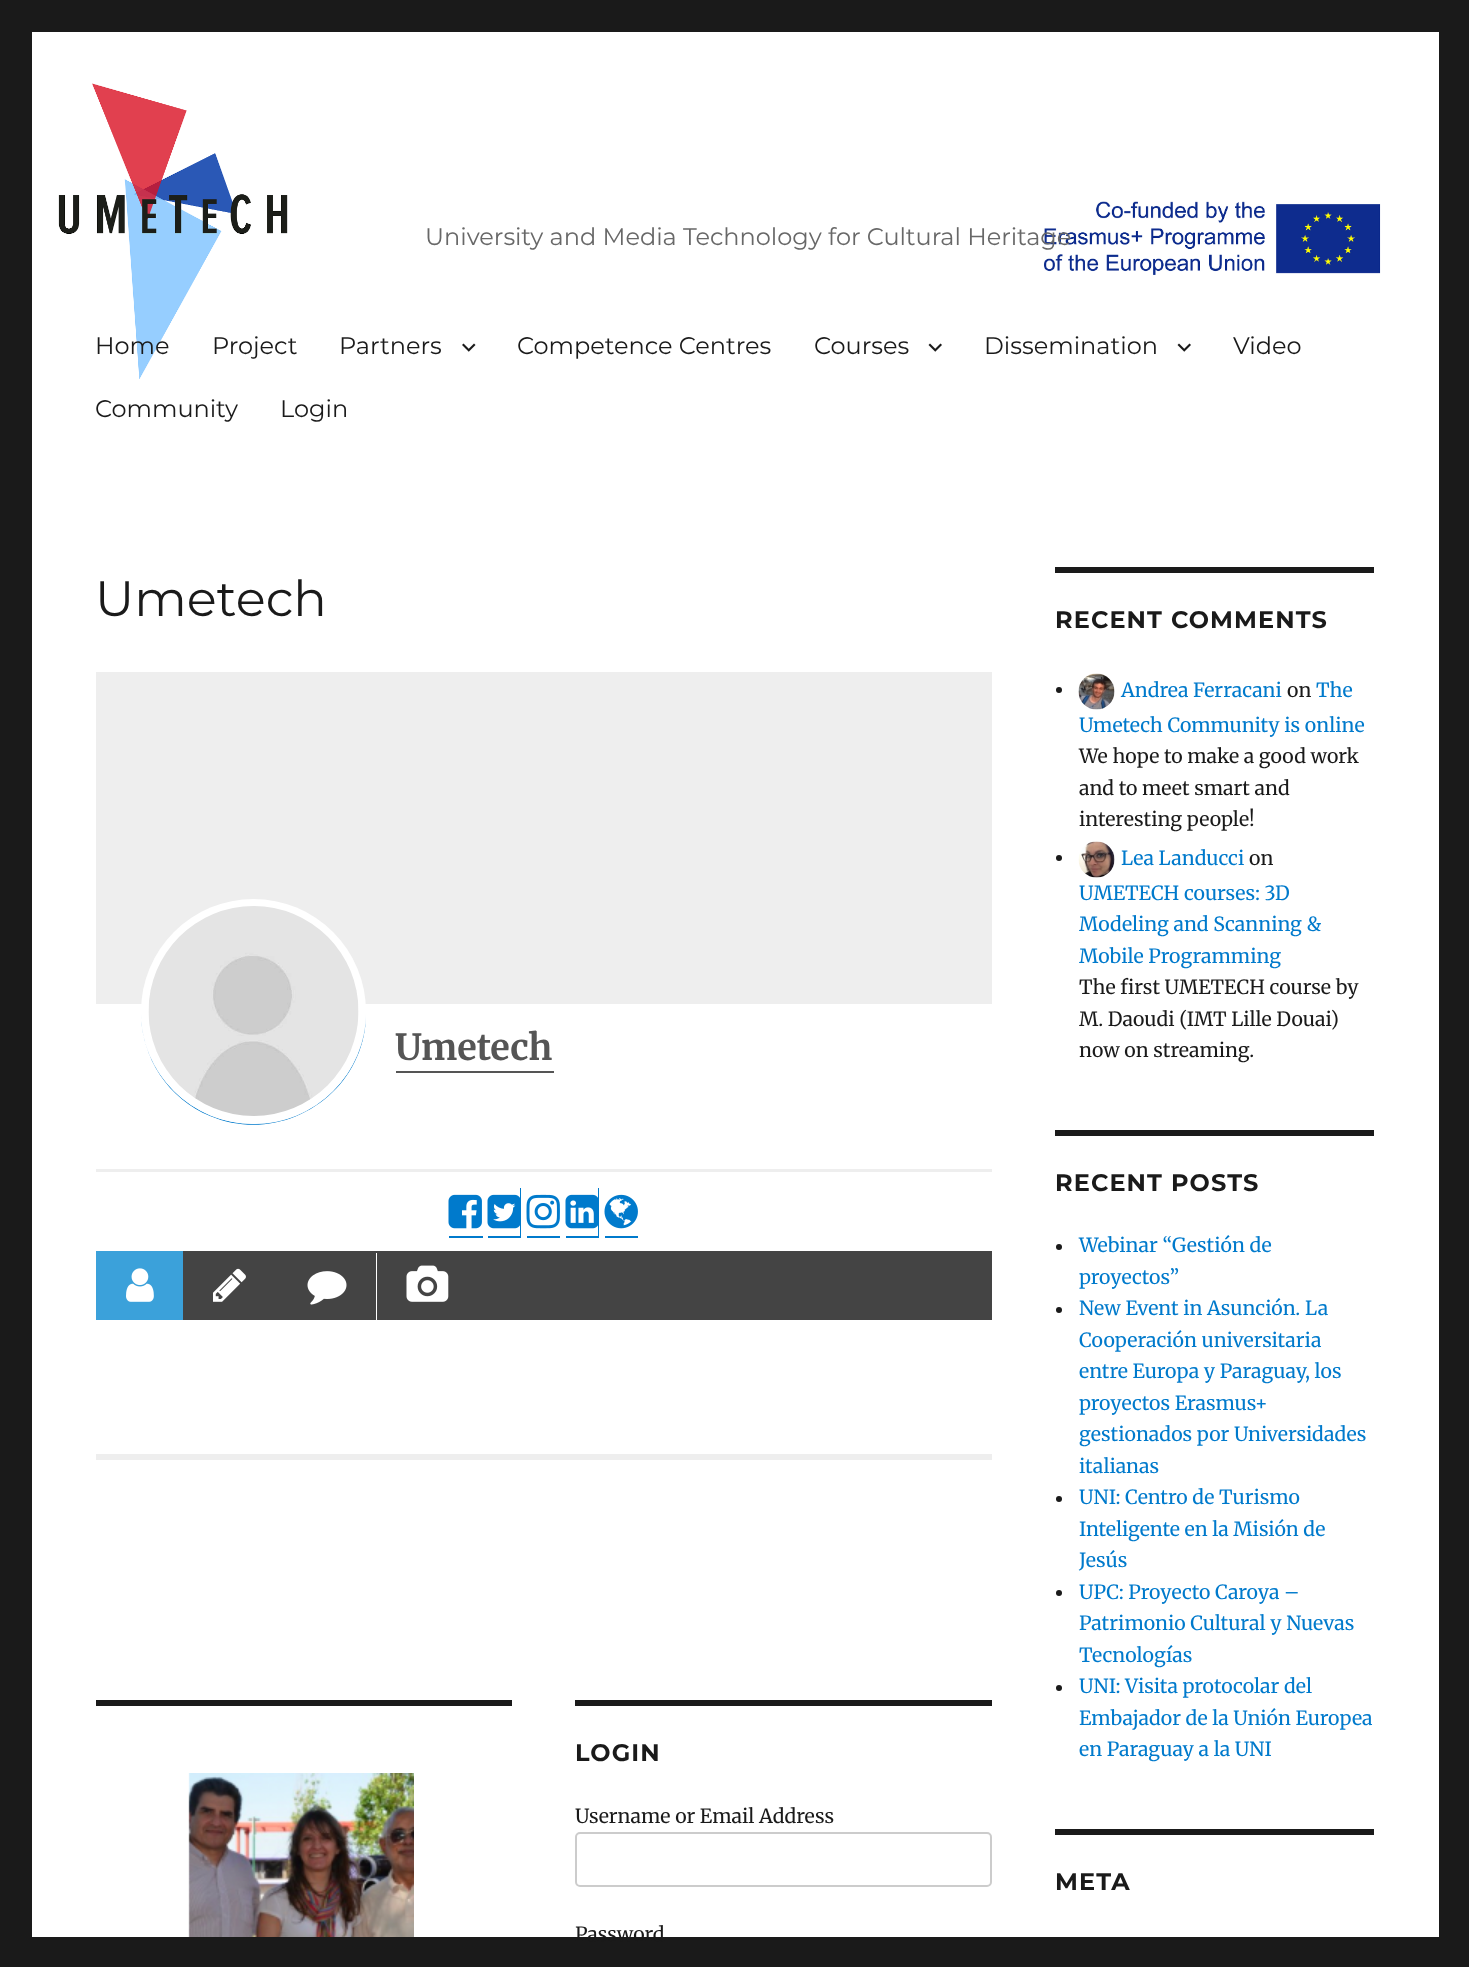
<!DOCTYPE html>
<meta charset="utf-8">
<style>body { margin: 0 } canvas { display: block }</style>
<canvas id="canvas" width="1469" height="1967"></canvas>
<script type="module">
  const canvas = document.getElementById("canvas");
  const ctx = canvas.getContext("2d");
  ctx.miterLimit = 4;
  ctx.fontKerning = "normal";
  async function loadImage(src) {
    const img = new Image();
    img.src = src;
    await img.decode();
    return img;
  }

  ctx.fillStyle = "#1a1a1a";
  ctx.fillRect(0, 0, 1469, 1967);
  ctx.fillStyle = "#ffffff";
  ctx.fillRect(32, 32, 1407, 1905);
  ctx.drawImage(await loadImage("img1.png"), 58, 83, 1323, 296);
  ctx.font = "24px Montserrat";
  ctx.fillStyle = "#686868";
  ctx.fillText("University and Media Technology for Cultural Heritage", 425, 245);
  ctx.fillStyle = "#1a1a1a";
  ctx.fillText("Home", 95, 354);
  ctx.fillText("Project", 212, 354);
  ctx.fillText("Partners", 339, 354);
  ctx.drawImage(await loadImage("img2.png"), 462, 343, 14, 9);
  ctx.fillText("Competence Centres", 517, 354);
  ctx.fillText("Courses", 814, 354);
  ctx.drawImage(await loadImage("img3.png"), 928, 343, 14, 9);
  ctx.fillText("Dissemination", 984, 354);
  ctx.drawImage(await loadImage("img3.png"), 1177, 343, 14, 9);
  ctx.fillText("Video", 1233, 354);
  ctx.fillText("Community", 95, 417);
  ctx.fillText("Login", 280, 417);
  ctx.font = "49.5px Montserrat";
  ctx.fillText("Umetech", 95, 616);
  ctx.fillStyle = "#eeeeee";
  ctx.fillRect(96, 672, 896, 332);
  ctx.fillRect(96, 1169, 896, 3);
  ctx.fillStyle = "#007acc";
  ctx.beginPath();
  ctx.moveTo(366, 1012);
  ctx.bezierCurveTo(366, 1074, 315, 1124, 254, 1124);
  ctx.bezierCurveTo(192, 1124, 141, 1074, 141, 1012);
  ctx.bezierCurveTo(141, 1034, 148, 1057, 160, 1075);
  ctx.bezierCurveTo(172, 1093, 190, 1108, 210, 1116);
  ctx.bezierCurveTo(284, 1147, 367, 1092, 366, 1012);
  ctx.closePath();
  ctx.fill();
  ctx.fillStyle = "#ffffff";
  ctx.beginPath();
  ctx.arc(253.5, 1011.5, 112.5, 0, Math.PI * 2);
  ctx.fill();
  ctx.drawImage(await loadImage("img4.png"), 148, 906, 211, 210);
  ctx.font = "bold 36px Merriweather";
  ctx.fillStyle = "#555555";
  ctx.fillText("Umetech", 395, 1060);
  ctx.beginPath();
  ctx.moveTo(396, 1071);
  ctx.lineTo(396, 1073);
  ctx.lineTo(554, 1073);
  ctx.lineTo(554, 1026);
  ctx.lineTo(554, 1071);
  ctx.closePath();
  ctx.fill();
  ctx.drawImage(await loadImage("img5.png"), 448, 1194, 34, 35);
  ctx.fillStyle = "#007acc";
  ctx.beginPath();
  ctx.moveTo(488, 1236);
  ctx.lineTo(488, 1238);
  ctx.lineTo(521, 1238);
  ctx.lineTo(521, 1188);
  ctx.lineTo(520, 1188);
  ctx.lineTo(520, 1236);
  ctx.closePath();
  ctx.fill();
  ctx.beginPath();
  ctx.moveTo(566, 1236);
  ctx.lineTo(566, 1238);
  ctx.lineTo(599, 1238);
  ctx.lineTo(599, 1188);
  ctx.lineTo(598, 1188);
  ctx.lineTo(598, 1236);
  ctx.closePath();
  ctx.fill();
  ctx.drawImage(await loadImage("img6.png"), 487, 1194, 33, 35);
  ctx.drawImage(await loadImage("img7.png"), 526, 1194, 34, 35);
  ctx.drawImage(await loadImage("img8.png"), 565, 1194, 33, 35);
  ctx.drawImage(await loadImage("img9.png"), 604, 1194, 34, 35);
  ctx.fillRect(449, 1236, 34, 2);
  ctx.beginPath();
  ctx.moveTo(527, 1236);
  ctx.lineTo(527, 1238);
  ctx.lineTo(560, 1238);
  ctx.lineTo(560, 1188);
  ctx.lineTo(560, 1236);
  ctx.closePath();
  ctx.fill();
  ctx.beginPath();
  ctx.moveTo(605, 1236);
  ctx.lineTo(605, 1238);
  ctx.lineTo(638, 1238);
  ctx.lineTo(638, 1188);
  ctx.lineTo(638, 1236);
  ctx.closePath();
  ctx.fill();
  ctx.fillStyle = "#444444";
  ctx.fillRect(183, 1251, 809, 69);
  ctx.fillStyle = "#3ba1da";
  ctx.fillRect(96, 1251, 87, 69);
  ctx.drawImage(await loadImage("img10.png"), 126, 1268, 28, 34);
  ctx.drawImage(await loadImage("img11.png"), 213, 1268, 33, 34);
  ctx.fillStyle = "#ffffff";
  ctx.beginPath();
  ctx.moveTo(278, 1320);
  ctx.lineTo(278, 1322);
  ctx.lineTo(377, 1322);
  ctx.lineTo(377, 1253);
  ctx.lineTo(376, 1253);
  ctx.lineTo(376, 1320);
  ctx.closePath();
  ctx.fill();
  ctx.drawImage(await loadImage("img12.png"), 307, 1271, 40, 34);
  ctx.drawImage(await loadImage("img13.png"), 406, 1265, 43, 37);
  ctx.fillStyle = "#eeeeee";
  ctx.fillRect(96, 1454, 896, 6);
  ctx.fillStyle = "#1a1a1a";
  ctx.fillRect(96, 1700, 416, 6);
  ctx.drawImage(await loadImage("img14.png"), 188, 1773, 226, 164);
  ctx.fillRect(575, 1700, 417, 6);
  ctx.letterSpacing = "1.1px";
  ctx.font = "bold 24px Montserrat";
  ctx.fillText("LOGIN", 575, 1761);
  ctx.letterSpacing = "0px";
  ctx.font = "19.5px Merriweather";
  ctx.fillText("Username or Email Address", 575, 1823);
  ctx.beginPath();
  ctx.roundRect(576, 1833, 415, 53, 4);
  ctx.strokeStyle = "#cccccc";
  ctx.lineWidth = 2;
  ctx.stroke();
  ctx.fillText("Password", 575, 1941);
  ctx.fillRect(1055, 567, 319, 6);
  ctx.letterSpacing = "1.1px";
  ctx.font = "bold 24px Montserrat";
  ctx.fillText("RECENT COMMENTS", 1055, 628);
  ctx.beginPath();
  ctx.arc(1059, 690, 3, 0, Math.PI * 2);
  ctx.fill();
  ctx.drawImage(await loadImage("img15.png"), 1078, 673, 37, 37);
  ctx.letterSpacing = "0px";
  ctx.font = "19.5px Merriweather";
  ctx.fillStyle = "#007acc";
  ctx.fillText("Andrea Ferracani", 1121, 697);
  ctx.fillStyle = "#1a1a1a";
  ctx.fillText("on", 1287, 697);
  ctx.fillStyle = "#007acc";
  ctx.fillText("The", 1316, 697);
  ctx.fillText("Umetech Community is online", 1079, 732);
  ctx.fillStyle = "#1a1a1a";
  ctx.fillText("We hope to make a good work", 1079, 763);
  ctx.fillText("and to meet smart and", 1079, 795);
  ctx.fillText("interesting people!", 1079, 826);
  ctx.beginPath();
  ctx.arc(1059, 858, 3, 0, Math.PI * 2);
  ctx.fill();
  ctx.drawImage(await loadImage("img16.png"), 1078, 841, 37, 37);
  ctx.fillStyle = "#007acc";
  ctx.fillText("Lea Landucci", 1121, 865);
  ctx.fillStyle = "#1a1a1a";
  ctx.fillText("on", 1249, 865);
  ctx.fillStyle = "#007acc";
  ctx.fillText("UMETECH courses: 3D", 1079, 900);
  ctx.fillText("Modeling and Scanning &", 1079, 931);
  ctx.fillText("Mobile Programming", 1079, 963);
  ctx.fillStyle = "#1a1a1a";
  ctx.fillText("The first UMETECH course by", 1079, 994);
  ctx.fillText("M. Daoudi (IMT Lille Douai)", 1079, 1026);
  ctx.fillText("now on streaming.", 1079, 1057);
  ctx.fillRect(1055, 1130, 319, 6);
  ctx.letterSpacing = "1.1px";
  ctx.font = "bold 24px Montserrat";
  ctx.fillText("RECENT POSTS", 1055, 1191);
  ctx.beginPath();
  ctx.arc(1059, 1247, 3, 0, Math.PI * 2);
  ctx.fill();
  ctx.letterSpacing = "0px";
  ctx.font = "19.5px Merriweather";
  ctx.fillStyle = "#007acc";
  ctx.fillText("Webinar “Gestión de", 1079, 1252);
  ctx.fillText("proyectos”", 1079, 1284);
  ctx.fillStyle = "#1a1a1a";
  ctx.beginPath();
  ctx.arc(1059, 1310, 3, 0, Math.PI * 2);
  ctx.fill();
  ctx.fillStyle = "#007acc";
  ctx.fillText("New Event in Asunción. La", 1079, 1315);
  ctx.fillText("Cooperación universitaria", 1079, 1347);
  ctx.fillText("entre Europa y Paraguay, los", 1079, 1378);
  ctx.fillText("proyectos Erasmus+", 1079, 1410);
  ctx.fillText("gestionados por Universidades", 1079, 1441);
  ctx.fillText("italianas", 1079, 1473);
  ctx.fillStyle = "#1a1a1a";
  ctx.beginPath();
  ctx.arc(1059, 1499, 3, 0, Math.PI * 2);
  ctx.fill();
  ctx.fillStyle = "#007acc";
  ctx.fillText("UNI: Centro de Turismo", 1079, 1504);
  ctx.fillText("Inteligente en la Misión de", 1079, 1536);
  ctx.fillText("Jesús", 1079, 1567);
  ctx.fillStyle = "#1a1a1a";
  ctx.beginPath();
  ctx.arc(1059, 1593, 3, 0, Math.PI * 2);
  ctx.fill();
  ctx.fillStyle = "#007acc";
  ctx.fillText("UPC: Proyecto Caroya –", 1079, 1599);
  ctx.fillText("Patrimonio Cultural y Nuevas", 1079, 1630);
  ctx.fillText("Tecnologías", 1079, 1662);
  ctx.fillStyle = "#1a1a1a";
  ctx.beginPath();
  ctx.arc(1059, 1688, 3, 0, Math.PI * 2);
  ctx.fill();
  ctx.fillStyle = "#007acc";
  ctx.fillText("UNI: Visita protocolar del", 1079, 1693);
  ctx.fillText("Embajador de la Unión Europea", 1079, 1725);
  ctx.fillText("en Paraguay a la UNI", 1079, 1756);
  ctx.fillStyle = "#1a1a1a";
  ctx.fillRect(1055, 1829, 319, 6);
  ctx.letterSpacing = "1.1px";
  ctx.font = "bold 24px Montserrat";
  ctx.fillText("META", 1055, 1890);
</script>
